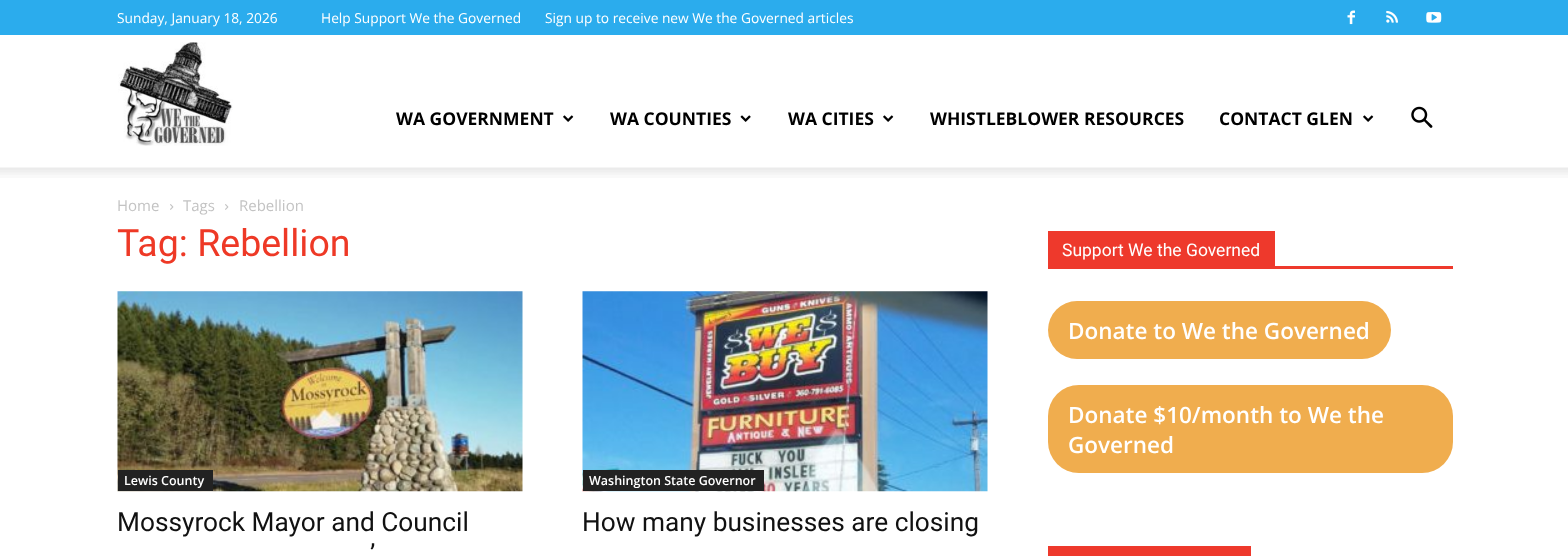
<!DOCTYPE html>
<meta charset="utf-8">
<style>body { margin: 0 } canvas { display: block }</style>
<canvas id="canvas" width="1568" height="556"></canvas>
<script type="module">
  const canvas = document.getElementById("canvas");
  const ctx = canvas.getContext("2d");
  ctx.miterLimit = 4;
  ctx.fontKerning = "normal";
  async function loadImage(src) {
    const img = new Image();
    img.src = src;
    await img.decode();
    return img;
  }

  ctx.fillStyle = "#ffffff";
  ctx.fillRect(0, 0, 1568, 556);
  ctx.fillStyle = "#2baced";
  ctx.fillRect(0, 0, 1568, 35);
  ctx.font = "13.75px Open Sans";
  ctx.fillStyle = "#ffffff";
  ctx.fillText("Sunday, January 18, 2026", 117, 23);
  ctx.fillText("Help Support We the Governed", 321, 23);
  ctx.fillText("Sign up to receive new We the Governed articles", 545, 23);
  ctx.drawImage(await loadImage("img1.png"), 1347, 10, 8, 15);
  ctx.drawImage(await loadImage("img2.png"), 1386, 10, 12, 13);
  ctx.drawImage(await loadImage("img3.png"), 1426, 12, 16, 11);
  ctx.drawImage(await loadImage("img4.png"), 118, 42, 115, 104);
  ctx.font = "bold 17.5px Open Sans";
  ctx.fillStyle = "#000000";
  ctx.fillText("WA GOVERNMENT", 396, 125);
  ctx.drawImage(await loadImage("img5.png"), 563, 115, 11, 7);
  ctx.fillText("WA COUNTIES", 610, 125);
  ctx.drawImage(await loadImage("img6.png"), 740, 115, 11, 7);
  ctx.fillText("WA CITIES", 788, 125);
  ctx.drawImage(await loadImage("img5.png"), 883, 115, 11, 7);
  ctx.fillText("WHISTLEBLOWER RESOURCES", 930, 125);
  ctx.fillText("CONTACT GLEN", 1219, 125);
  ctx.drawImage(await loadImage("img5.png"), 1363, 115, 11, 7);
  ctx.drawImage(await loadImage("img7.png"), 1411, 106, 22, 22);
  ctx.drawImage(await loadImage("img8.png"), 0, 167, 1568, 11);
  ctx.font = "15px Open Sans";
  ctx.fillStyle = "#c3c3c3";
  ctx.fillText("Home", 117, 211);
  ctx.drawImage(await loadImage("img9.png"), 170, 204, 4, 6);
  ctx.fillText("Tags", 183, 211);
  ctx.drawImage(await loadImage("img9.png"), 225, 204, 4, 6);
  ctx.fillText("Rebellion", 239, 211);
  ctx.font = "37.5px Roboto";
  ctx.fillStyle = "#ee3926";
  ctx.fillText("Tag: Rebellion", 117, 256);
  ctx.drawImage(await loadImage("img10.png"), 117, 291, 406, 201);
  ctx.fillStyle = "#222222";
  ctx.fillRect(118, 470, 95, 21);
  ctx.font = "600 12.5px Open Sans";
  ctx.fillStyle = "#ffffff";
  ctx.fillText("Lewis County", 124, 485);
  ctx.font = "26.25px Roboto";
  ctx.fillStyle = "#111111";
  ctx.fillText("Mossyrock Mayor and Council", 117, 531);
  ctx.fillText("’", 370, 563);
  ctx.drawImage(await loadImage("img11.png"), 582, 291, 406, 201);
  ctx.fillStyle = "#222222";
  ctx.fillRect(583, 470, 181, 21);
  ctx.font = "600 12.5px Open Sans";
  ctx.fillStyle = "#ffffff";
  ctx.fillText("Washington State Governor", 589, 485);
  ctx.font = "26.25px Roboto";
  ctx.fillStyle = "#111111";
  ctx.fillText("How many businesses are closing", 582, 531);
  ctx.fillStyle = "#ee392c";
  ctx.fillRect(1048, 266, 405, 3);
  ctx.fillRect(1048, 231, 227, 35);
  ctx.font = "17.5px Roboto";
  ctx.fillStyle = "#ffffff";
  ctx.fillText("Support We the Governed", 1062, 256);
  ctx.fillStyle = "#f0ad4e";
  ctx.beginPath();
  ctx.roundRect(1048, 301, 343, 58, 29);
  ctx.fill();
  ctx.font = "600 22.5px Open Sans";
  ctx.fillStyle = "#ffffff";
  ctx.fillText("Donate to We the Governed", 1068, 339);
  ctx.fillStyle = "#f0ad4e";
  ctx.beginPath();
  ctx.roundRect(1048, 385, 405, 88, 31);
  ctx.fill();
  ctx.fillStyle = "#ffffff";
  ctx.fillText("Donate $10/month to We the", 1068, 423);
  ctx.fillText("Governed", 1068, 453);
  ctx.fillStyle = "#ee392c";
  ctx.fillRect(1048, 546, 203, 10);
</script>
